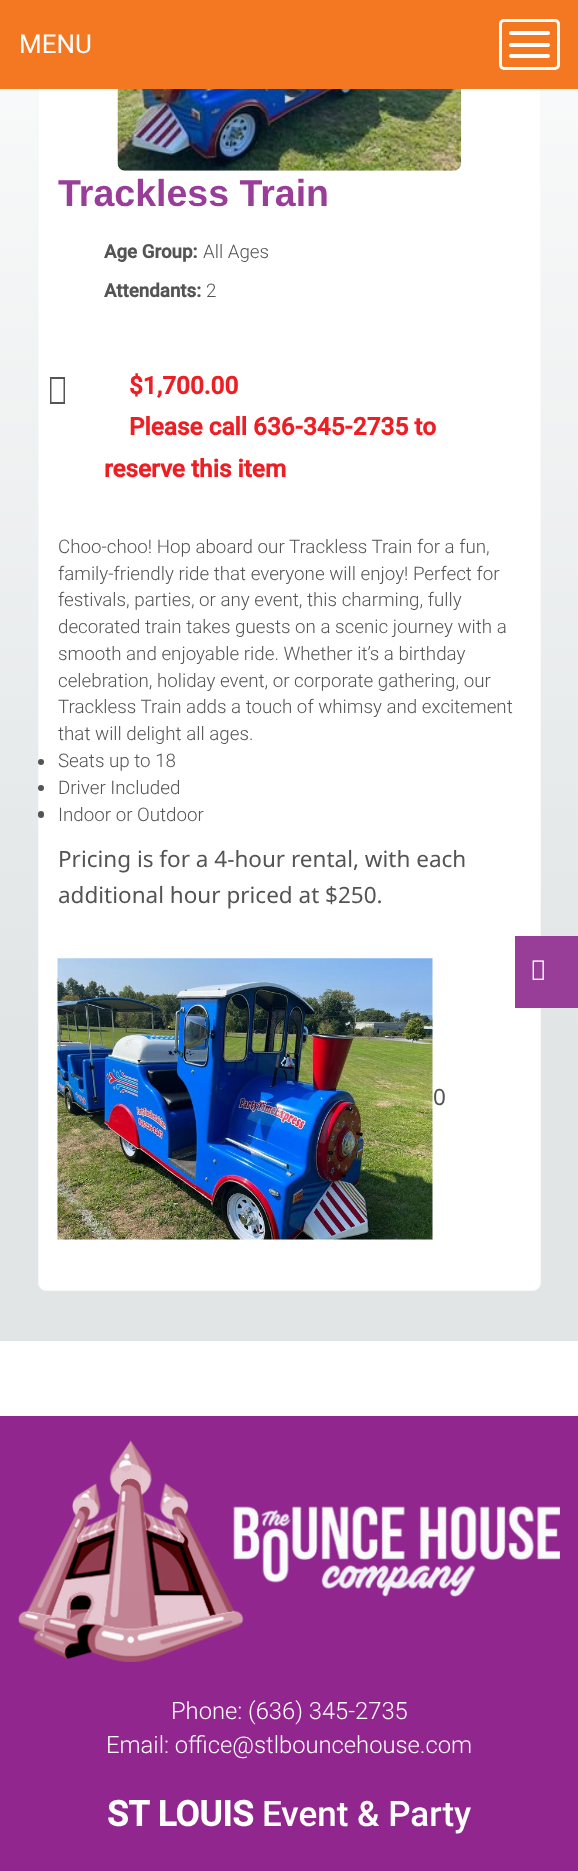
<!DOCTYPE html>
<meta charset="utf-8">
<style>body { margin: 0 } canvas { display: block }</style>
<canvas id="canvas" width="578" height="1871"></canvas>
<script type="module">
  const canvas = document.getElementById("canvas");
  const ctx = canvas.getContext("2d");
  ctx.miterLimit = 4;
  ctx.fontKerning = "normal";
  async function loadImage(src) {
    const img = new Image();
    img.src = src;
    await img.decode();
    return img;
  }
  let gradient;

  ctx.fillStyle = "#ffffff";
  ctx.fillRect(0, 0, 578, 1871);
  gradient = ctx.createLinearGradient(289, 1341, 289, -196);
  gradient.addColorStop(0.2, "#e1e5e6");
  gradient.addColorStop(1, "#ffffff");
  ctx.fillStyle = gradient;
  ctx.fillRect(0, 89, 578, 1252);
  ctx.fillStyle = "#ffffff";
  ctx.beginPath();
  ctx.roundRect(38.5, -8.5, 502, 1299, 7.5);
  ctx.fill();
  ctx.strokeStyle = "#f9f8f8";
  ctx.stroke();
  ctx.fillStyle = "#f47721";
  ctx.fillRect(0, 0, 578, 89);
  ctx.font = "26px Roboto";
  ctx.fillStyle = "#ffffff";
  ctx.fillText("MENU", 19, 53);
  ctx.beginPath();
  ctx.roundRect(500.5, 20.5, 58, 48, 3.5);
  ctx.strokeStyle = "#ffffff";
  ctx.lineWidth = 3;
  ctx.stroke();
  ctx.beginPath();
  ctx.roundRect(509, 31, 41, 4, 2);
  ctx.fill();
  ctx.beginPath();
  ctx.roundRect(509, 43, 41, 4, 2);
  ctx.fill();
  ctx.beginPath();
  ctx.roundRect(509, 54, 41, 4, 2);
  ctx.fill();
  ctx.drawImage(await loadImage("img1.png"), 117, 89, 345, 82);
  ctx.font = "bold 37.5px Liberation Sans";
  ctx.fillStyle = "#993e98";
  ctx.fillText("Trackless Train", 58, 206);
  ctx.font = "bold 18.75px Roboto";
  ctx.fillStyle = "#545454";
  ctx.fillText("Age Group:", 104, 258);
  ctx.font = "300 18.75px Roboto";
  ctx.fillText("All Ages", 203, 258);
  ctx.font = "bold 18.75px Roboto";
  ctx.fillText("Attendants:", 104, 297);
  ctx.font = "300 18.75px Roboto";
  ctx.fillText("2", 206, 297);
  ctx.beginPath();
  ctx.moveTo(50, 404);
  ctx.lineTo(50, 377);
  ctx.lineTo(65, 377);
  ctx.lineTo(65, 404);
  ctx.closePath();
  ctx.moveTo(51.5, 402);
  ctx.lineTo(63.5, 402);
  ctx.lineTo(63.5, 379);
  ctx.lineTo(51.5, 379);
  ctx.closePath();
  ctx.fill();
  ctx.font = "bold 24.4px Roboto";
  ctx.fillStyle = "#ee1f24";
  ctx.fillText("$1,700.00", 129, 394);
  ctx.fillText("Please call 636-345-2735 to", 129, 435);
  ctx.fillText("reserve this item", 104, 477);
  ctx.font = "300 18.75px Roboto";
  ctx.fillStyle = "#545454";
  ctx.fillText("Choo-choo! Hop aboard our Trackless Train for a fun,", 58, 553);
  ctx.fillText("family-friendly ride that everyone will enjoy! Perfect for", 58, 580);
  ctx.fillText("festivals, parties, or any event, this charming, fully", 58, 606);
  ctx.fillText("decorated train takes guests on a scenic journey with a", 58, 633);
  ctx.fillText("smooth and enjoyable ride. Whether it’s a birthday", 58, 660);
  ctx.fillText("celebration, holiday event, or corporate gathering, our", 58, 687);
  ctx.fillText("Trackless Train adds a touch of whimsy and excitement", 58, 713);
  ctx.fillText("that will delight all ages.", 58, 740);
  ctx.beginPath();
  ctx.arc(41, 762, 3, 0, Math.PI * 2);
  ctx.fill();
  ctx.fillText("Seats up to 18", 58, 767);
  ctx.beginPath();
  ctx.arc(41, 788, 3, 0, Math.PI * 2);
  ctx.fill();
  ctx.fillText("Driver Included", 58, 794);
  ctx.beginPath();
  ctx.roundRect(38, 811, 6, 7, 3);
  ctx.fill();
  ctx.fillText("Indoor or Outdoor", 58, 821);
  ctx.font = "22.5px Noto Sans";
  ctx.fillText("Pricing is for a 4-hour rental, with each", 58, 867);
  ctx.fillText("additional hour priced at $250.", 58, 903);
  ctx.drawImage(await loadImage("img2.png"), 57, 958, 376, 282);
  ctx.fillText("0", 433, 1105);
  ctx.fillStyle = "#92268f";
  ctx.fillRect(0, 1416, 578, 455);
  ctx.drawImage(await loadImage("img3.png"), 18, 1440, 542, 222);
  ctx.font = "300 23.75px Roboto";
  ctx.fillStyle = "#ffffff";
  ctx.fillText("Phone: (636) 345-2735", 171, 1719);
  ctx.fillText("Email: office@stlbouncehouse.com", 106, 1753);
  ctx.font = "bold 35px Roboto";
  ctx.fillText("ST LOUIS", 107, 1826);
  ctx.font = "500 35px Roboto";
  ctx.fillText("Event & Party", 262, 1826);
  ctx.fillStyle = "#993e98";
  ctx.fillRect(515, 936, 63, 72);
  ctx.drawImage(await loadImage("img4.png"), 532, 960, 12, 20);
</script>
